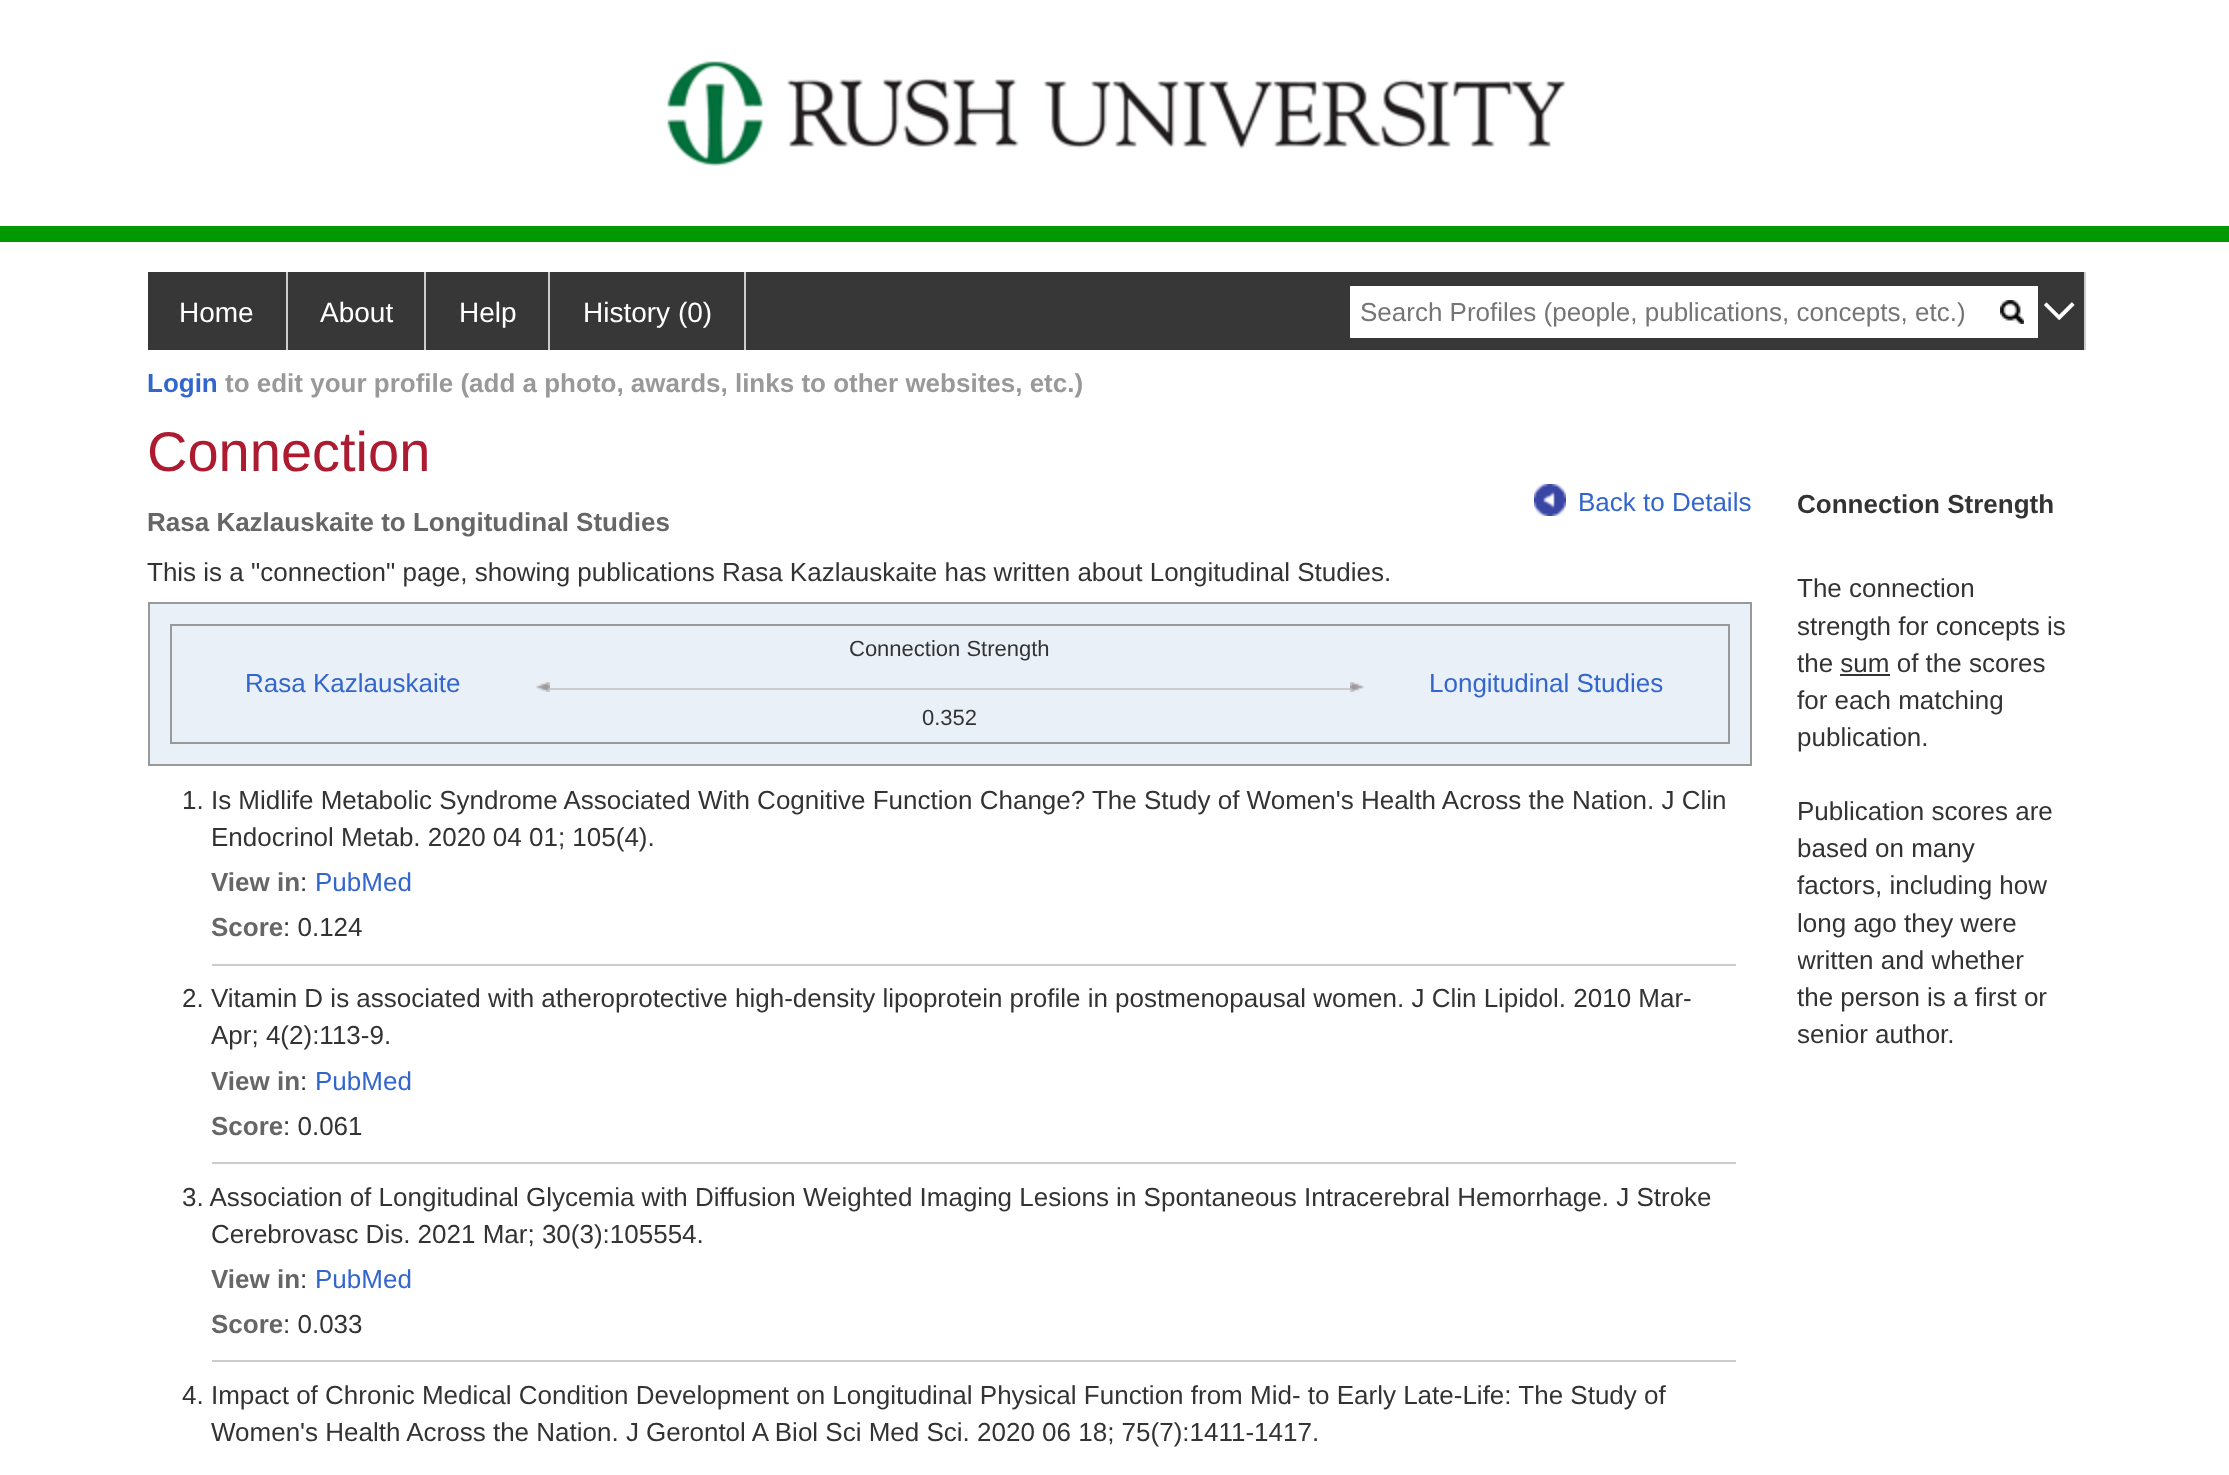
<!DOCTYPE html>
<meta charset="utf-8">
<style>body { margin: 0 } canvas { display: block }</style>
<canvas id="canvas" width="2229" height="1475"></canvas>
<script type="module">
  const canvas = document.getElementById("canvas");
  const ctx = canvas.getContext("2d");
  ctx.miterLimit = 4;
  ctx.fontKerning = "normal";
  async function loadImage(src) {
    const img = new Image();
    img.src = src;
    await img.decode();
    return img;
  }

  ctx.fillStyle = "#ffffff";
  ctx.fillRect(0, 0, 2229, 1475);
  ctx.fillStyle = "#009900";
  ctx.fillRect(0, 226, 2229, 16);
  ctx.drawImage(await loadImage("img1.png"), 667, 61, 899, 105);
  ctx.fillStyle = "#383737";
  ctx.fillRect(148, 272, 1936, 78);
  ctx.fillStyle = "#cccccc";
  ctx.fillRect(286, 272, 2, 78);
  ctx.font = "28px Liberation Sans";
  ctx.fillStyle = "#ffffff";
  ctx.fillText("Home", 179, 322);
  ctx.fillStyle = "#cccccc";
  ctx.fillRect(424, 272, 2, 78);
  ctx.fillStyle = "#ffffff";
  ctx.fillText("About", 320, 322);
  ctx.fillStyle = "#cccccc";
  ctx.fillRect(548, 272, 2, 78);
  ctx.fillStyle = "#ffffff";
  ctx.fillText("Help", 459, 322);
  ctx.fillStyle = "#cccccc";
  ctx.fillRect(744, 272, 2, 78);
  ctx.fillStyle = "#ffffff";
  ctx.fillText("History (0)", 583, 322);
  ctx.fillRect(1350, 286, 688, 52);
  ctx.font = "26px Liberation Sans";
  ctx.fillStyle = "#757575";
  ctx.fillText("Search Profiles (people, publications, concepts, etc.)", 1360, 321);
  ctx.drawImage(await loadImage("img2.png"), 2000, 300, 24, 24);
  ctx.fillStyle = "#cccccc";
  ctx.fillRect(2084, 272, 2, 78);
  ctx.drawImage(await loadImage("img3.png"), 2043, 302, 32, 19);
  ctx.font = "bold 26px Liberation Sans";
  ctx.fillStyle = "#3366cc";
  ctx.fillText("Login", 147, 392);
  ctx.fillStyle = "#999999";
  ctx.fillText("to edit your profile (add a photo, awards, links to other websites, etc.)", 225, 392);
  ctx.font = "56px Liberation Sans";
  ctx.fillStyle = "#ac1b30";
  ctx.fillText("Connection", 147, 471);
  ctx.drawImage(await loadImage("img4.png"), 1534, 484, 32, 32);
  ctx.font = "26px Liberation Sans";
  ctx.fillStyle = "#3366cc";
  ctx.fillText("Back to Details", 1578, 511);
  ctx.font = "bold 26px Liberation Sans";
  ctx.fillStyle = "#666666";
  ctx.fillText("Rasa Kazlauskaite to Longitudinal Studies", 147, 531);
  ctx.font = "26px Liberation Sans";
  ctx.fillStyle = "#333333";
  ctx.fillText("This is a \"connection\" page, showing publications Rasa Kazlauskaite has written about Longitudinal Studies.", 147, 581);
  ctx.fillStyle = "#eaf0f8";
  ctx.beginPath();
  ctx.rect(149, 603, 1602, 162);
  ctx.fill();
  ctx.strokeStyle = "#999999";
  ctx.lineWidth = 2;
  ctx.stroke();
  ctx.strokeRect(171, 625, 1558, 118);
  ctx.fillStyle = "#3366cc";
  ctx.fillText("Rasa Kazlauskaite", 245, 692);
  ctx.drawImage(await loadImage("img5.png"), 536, 682, 14, 10);
  ctx.font = "22px Liberation Sans";
  ctx.fillStyle = "#333333";
  ctx.fillText("Connection Strength", 849, 656);
  ctx.fillStyle = "#cccccc";
  ctx.fillRect(550, 688, 800, 2);
  ctx.fillStyle = "#333333";
  ctx.fillText("0.352", 922, 725);
  ctx.drawImage(await loadImage("img6.png"), 1350, 682, 14, 10);
  ctx.font = "26px Liberation Sans";
  ctx.fillStyle = "#3366cc";
  ctx.fillText("Longitudinal Studies", 1429, 692);
  ctx.fillStyle = "#333333";
  ctx.fillText("1. Is Midlife Metabolic Syndrome Associated With Cognitive Function Change? The Study of Women's Health Across the Nation. J Clin", 182, 809);
  ctx.fillText("Endocrinol Metab. 2020 04 01; 105(4).", 211, 846);
  ctx.font = "bold 26px Liberation Sans";
  ctx.fillStyle = "#666666";
  ctx.fillText("View in", 211, 891);
  ctx.font = "26px Liberation Sans";
  ctx.fillStyle = "#333333";
  ctx.fillText(":", 300, 891);
  ctx.fillStyle = "#3366cc";
  ctx.fillText("PubMed", 315, 891);
  ctx.font = "bold 26px Liberation Sans";
  ctx.fillStyle = "#666666";
  ctx.fillText("Score", 211, 936);
  ctx.font = "26px Liberation Sans";
  ctx.fillStyle = "#333333";
  ctx.fillText(": 0.124", 283, 936);
  ctx.fillStyle = "#cccccc";
  ctx.fillRect(212, 964, 1524, 2);
  ctx.fillStyle = "#333333";
  ctx.fillText("2. Vitamin D is associated with atheroprotective high-density lipoprotein profile in postmenopausal women. J Clin Lipidol. 2010 Mar-", 182, 1007);
  ctx.fillText("Apr; 4(2):113-9.", 211, 1044);
  ctx.font = "bold 26px Liberation Sans";
  ctx.fillStyle = "#666666";
  ctx.fillText("View in", 211, 1090);
  ctx.font = "26px Liberation Sans";
  ctx.fillStyle = "#333333";
  ctx.fillText(":", 300, 1090);
  ctx.fillStyle = "#3366cc";
  ctx.fillText("PubMed", 315, 1090);
  ctx.font = "bold 26px Liberation Sans";
  ctx.fillStyle = "#666666";
  ctx.fillText("Score", 211, 1135);
  ctx.font = "26px Liberation Sans";
  ctx.fillStyle = "#333333";
  ctx.fillText(": 0.061", 283, 1135);
  ctx.fillStyle = "#cccccc";
  ctx.fillRect(212, 1162, 1524, 2);
  ctx.fillStyle = "#333333";
  ctx.fillText("3. Association of Longitudinal Glycemia with Diffusion Weighted Imaging Lesions in Spontaneous Intracerebral Hemorrhage. J Stroke", 182, 1206);
  ctx.fillText("Cerebrovasc Dis. 2021 Mar; 30(3):105554.", 211, 1243);
  ctx.font = "bold 26px Liberation Sans";
  ctx.fillStyle = "#666666";
  ctx.fillText("View in", 211, 1288);
  ctx.font = "26px Liberation Sans";
  ctx.fillStyle = "#333333";
  ctx.fillText(":", 300, 1288);
  ctx.fillStyle = "#3366cc";
  ctx.fillText("PubMed", 315, 1288);
  ctx.font = "bold 26px Liberation Sans";
  ctx.fillStyle = "#666666";
  ctx.fillText("Score", 211, 1333);
  ctx.font = "26px Liberation Sans";
  ctx.fillStyle = "#333333";
  ctx.fillText(": 0.033", 283, 1333);
  ctx.fillStyle = "#cccccc";
  ctx.fillRect(212, 1360, 1524, 2);
  ctx.fillStyle = "#333333";
  ctx.fillText("4. Impact of Chronic Medical Condition Development on Longitudinal Physical Function from Mid- to Early Late-Life: The Study of", 182, 1404);
  ctx.fillText("Women's Health Across the Nation. J Gerontol A Biol Sci Med Sci. 2020 06 18; 75(7):1411-1417.", 211, 1441);
  ctx.font = "bold 26px Liberation Sans";
  ctx.fillText("Connection Strength", 1797, 513);
  ctx.font = "26px Liberation Sans";
  ctx.fillText("The connection", 1797, 597);
  ctx.fillText("strength for concepts is", 1797, 635);
  ctx.fillText("the sum of the scores", 1797, 672);
  ctx.fillRect(1840, 674, 50, 2);
  ctx.fillText("for each matching", 1797, 709);
  ctx.fillText("publication.", 1797, 746);
  ctx.fillText("Publication scores are", 1797, 820);
  ctx.fillText("based on many", 1797, 857);
  ctx.fillText("factors, including how", 1797, 894);
  ctx.fillText("long ago they were", 1797, 932);
  ctx.save();
  ctx.beginPath();
  ctx.rect(1798, 572, 270, 482);
  ctx.clip();
  ctx.fillText("written and whether", 1797, 969);
  ctx.restore();
  ctx.fillText("the person is a first or", 1797, 1006);
  ctx.fillText("senior author.", 1797, 1043);
</script>
